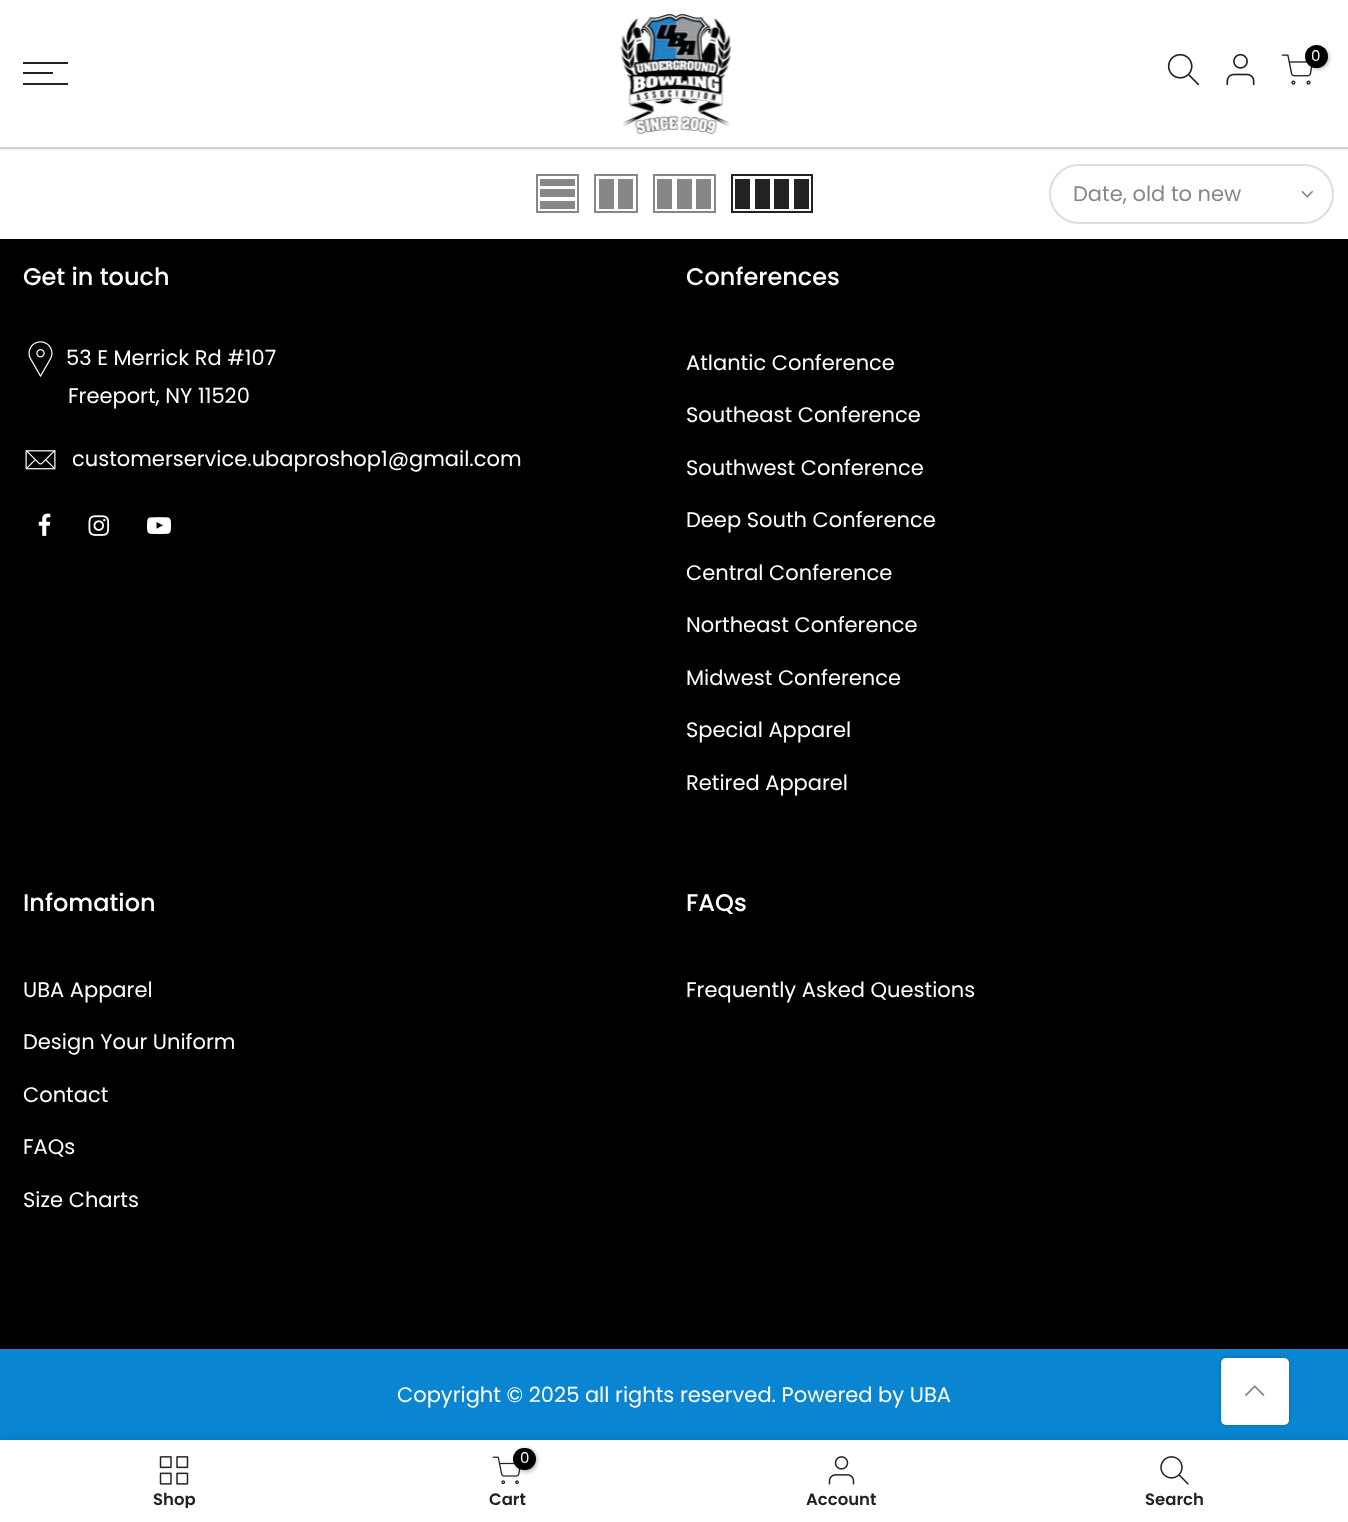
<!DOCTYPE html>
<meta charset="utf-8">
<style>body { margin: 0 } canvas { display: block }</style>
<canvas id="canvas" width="1348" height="1522"></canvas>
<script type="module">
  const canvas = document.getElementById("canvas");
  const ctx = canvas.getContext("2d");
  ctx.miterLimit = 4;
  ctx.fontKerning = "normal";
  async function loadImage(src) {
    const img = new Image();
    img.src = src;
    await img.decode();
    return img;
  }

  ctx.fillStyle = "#ffffff";
  ctx.fillRect(0, 0, 1348, 1522);
  ctx.fillStyle = "#dedede";
  ctx.fillRect(0, 147, 1348, 2);
  ctx.fillStyle = "rgba(0, 0, 0, 0.1)";
  ctx.filter = "blur(2px)";
  ctx.beginPath();
  ctx.rect(0, 2, 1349, 147);
  ctx.fill();
  ctx.filter = "none";
  ctx.fillStyle = "#ffffff";
  ctx.fillRect(0, 0, 1348, 147);
  ctx.drawImage(await loadImage("img1.png"), 620, 13, 112, 122);
  ctx.drawImage(await loadImage("img2.png"), 1167, 53, 33, 33);
  ctx.drawImage(await loadImage("img3.png"), 1226, 53, 29, 33);
  ctx.drawImage(await loadImage("img4.png"), 1281, 54, 32, 31);
  ctx.fillStyle = "rgba(0, 0, 0, 0.3)";
  ctx.filter = "blur(2px)";
  ctx.beginPath();
  ctx.roundRect(1307, 47, 22, 22, 11);
  ctx.fill();
  ctx.filter = "none";
  ctx.fillStyle = "#000000";
  ctx.beginPath();
  ctx.arc(1316.5, 56.5, 11.5, 0, Math.PI * 2);
  ctx.fill();
  ctx.font = "15px Poppins";
  ctx.fillStyle = "#ffffff";
  ctx.fillText("0", 1311, 61);
  ctx.fillStyle = "#222222";
  ctx.fillRect(23, 62, 45, 2);
  ctx.fillRect(23, 72, 30, 2);
  ctx.fillRect(23, 83, 45, 2);
  ctx.strokeStyle = "#878787";
  ctx.lineWidth = 2;
  ctx.strokeRect(537, 175, 41, 37);
  ctx.fillStyle = "#878787";
  ctx.fillRect(540, 201, 35, 8);
  ctx.fillRect(540, 189, 35, 8);
  ctx.fillRect(540, 179, 35, 7);
  ctx.strokeRect(595, 175, 42, 37);
  ctx.fillRect(618, 179, 15, 30);
  ctx.fillRect(599, 179, 15, 30);
  ctx.strokeRect(654, 175, 61, 37);
  ctx.fillRect(696, 179, 15, 30);
  ctx.fillRect(677, 179, 15, 30);
  ctx.fillRect(657, 179, 15, 30);
  ctx.strokeStyle = "#222222";
  ctx.strokeRect(732, 175, 80, 37);
  ctx.fillStyle = "#222222";
  ctx.fillRect(794, 179, 15, 30);
  ctx.fillRect(774, 179, 15, 30);
  ctx.fillRect(755, 179, 15, 30);
  ctx.fillRect(735, 179, 15, 30);
  ctx.beginPath();
  ctx.roundRect(1050, 165, 283, 58, 29);
  ctx.strokeStyle = "#dddddd";
  ctx.stroke();
  ctx.font = "21px Poppins";
  ctx.fillStyle = "#878787";
  ctx.fillText("Date, old to new", 1073, 201);
  ctx.drawImage(await loadImage("img5.png"), 1301, 190, 12, 8);
  ctx.fillStyle = "#000000";
  ctx.fillRect(0, 239, 1348, 1110);
  ctx.font = "500 24px Poppins";
  ctx.fillStyle = "#ffffff";
  ctx.fillText("Get in touch", 23, 285);
  ctx.drawImage(await loadImage("img6.png"), 28, 341, 25, 37);
  ctx.font = "21px Poppins";
  ctx.fillText("53 E Merrick Rd #107", 66, 365);
  ctx.fillText("Freeport, NY 11520", 68, 403);
  ctx.drawImage(await loadImage("img7.png"), 25, 450, 31, 20);
  ctx.fillText("customerservice.ubaproshop1@gmail.com", 72, 466);
  ctx.drawImage(await loadImage("img8.png"), 38, 513, 13, 23);
  ctx.drawImage(await loadImage("img9.png"), 88, 515, 22, 21);
  ctx.drawImage(await loadImage("img10.png"), 147, 517, 24, 18);
  ctx.font = "500 24px Poppins";
  ctx.fillText("Conferences", 686, 285);
  ctx.font = "21px Poppins";
  ctx.fillText("Atlantic Conference", 686, 370);
  ctx.fillText("Southeast Conference", 686, 422);
  ctx.fillText("Southwest Conference", 686, 475);
  ctx.fillText("Deep South Conference", 686, 527);
  ctx.fillText("Central Conference", 686, 580);
  ctx.fillText("Northeast Conference", 686, 632);
  ctx.fillText("Midwest Conference", 686, 685);
  ctx.fillText("Special Apparel", 686, 737);
  ctx.fillText("Retired Apparel", 686, 790);
  ctx.font = "500 24px Poppins";
  ctx.fillText("Infomation", 23, 911);
  ctx.font = "21px Poppins";
  ctx.fillText("UBA Apparel", 23, 997);
  ctx.fillText("Design Your Uniform", 23, 1049);
  ctx.fillText("Contact", 23, 1102);
  ctx.fillText("FAQs", 23, 1154);
  ctx.fillText("Size Charts", 23, 1207);
  ctx.font = "500 24px Poppins";
  ctx.fillText("FAQs", 686, 911);
  ctx.font = "21px Poppins";
  ctx.fillText("Frequently Asked Questions", 686, 997);
  ctx.fillStyle = "#0a85d1";
  ctx.fillRect(0, 1349, 1348, 91);
  ctx.fillStyle = "#ffffff";
  ctx.fillText("Copyright © 2025 all rights reserved. Powered by UBA", 397, 1402);
  ctx.fillStyle = "rgba(0, 0, 0, 0.2)";
  ctx.filter = "blur(2px)";
  ctx.beginPath();
  ctx.roundRect(1221, 1358, 68, 67, 5);
  ctx.fill();
  ctx.filter = "none";
  ctx.fillStyle = "#ffffff";
  ctx.beginPath();
  ctx.roundRect(1221, 1358, 68, 67, 5);
  ctx.fill();
  ctx.drawImage(await loadImage("img11.png"), 1245, 1385, 20, 12);
  ctx.save();
  ctx.beginPath();
  ctx.rect(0, 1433, 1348, 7);
  ctx.clip();
  ctx.fillStyle = "rgba(0, 0, 0, 0.12)";
  ctx.filter = "blur(7px)";
  ctx.beginPath();
  ctx.rect(0, 1440, 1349, 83);
  ctx.fill();
  ctx.filter = "none";
  ctx.restore();
  ctx.drawImage(await loadImage("img12.png"), 159, 1456, 30, 29);
  ctx.save();
  ctx.beginPath();
  ctx.rect(23, 1491, 303, 17);
  ctx.clip();
  ctx.font = "600 16.5px Poppins";
  ctx.fillStyle = "#222222";
  ctx.fillText("Shop", 153, 1505);
  ctx.restore();
  ctx.drawImage(await loadImage("img13.png"), 492, 1456, 29, 29);
  ctx.fillStyle = "rgba(0, 0, 0, 0.3)";
  ctx.filter = "blur(2px)";
  ctx.beginPath();
  ctx.roundRect(515, 1449, 22, 23, 11);
  ctx.fill();
  ctx.filter = "none";
  ctx.fillStyle = "#000000";
  ctx.beginPath();
  ctx.roundRect(513, 1448, 23, 22, 11);
  ctx.fill();
  ctx.font = "15px Poppins";
  ctx.fillStyle = "#ffffff";
  ctx.fillText("0", 520, 1463);
  ctx.font = "600 16.5px Poppins";
  ctx.fillStyle = "#222222";
  ctx.fillText("Cart", 489, 1505);
  ctx.drawImage(await loadImage("img14.png"), 828, 1456, 27, 29);
  ctx.fillText("Account", 806, 1505);
  ctx.drawImage(await loadImage("img15.png"), 1160, 1456, 29, 29);
  ctx.fillText("Search", 1145, 1505);
</script>
